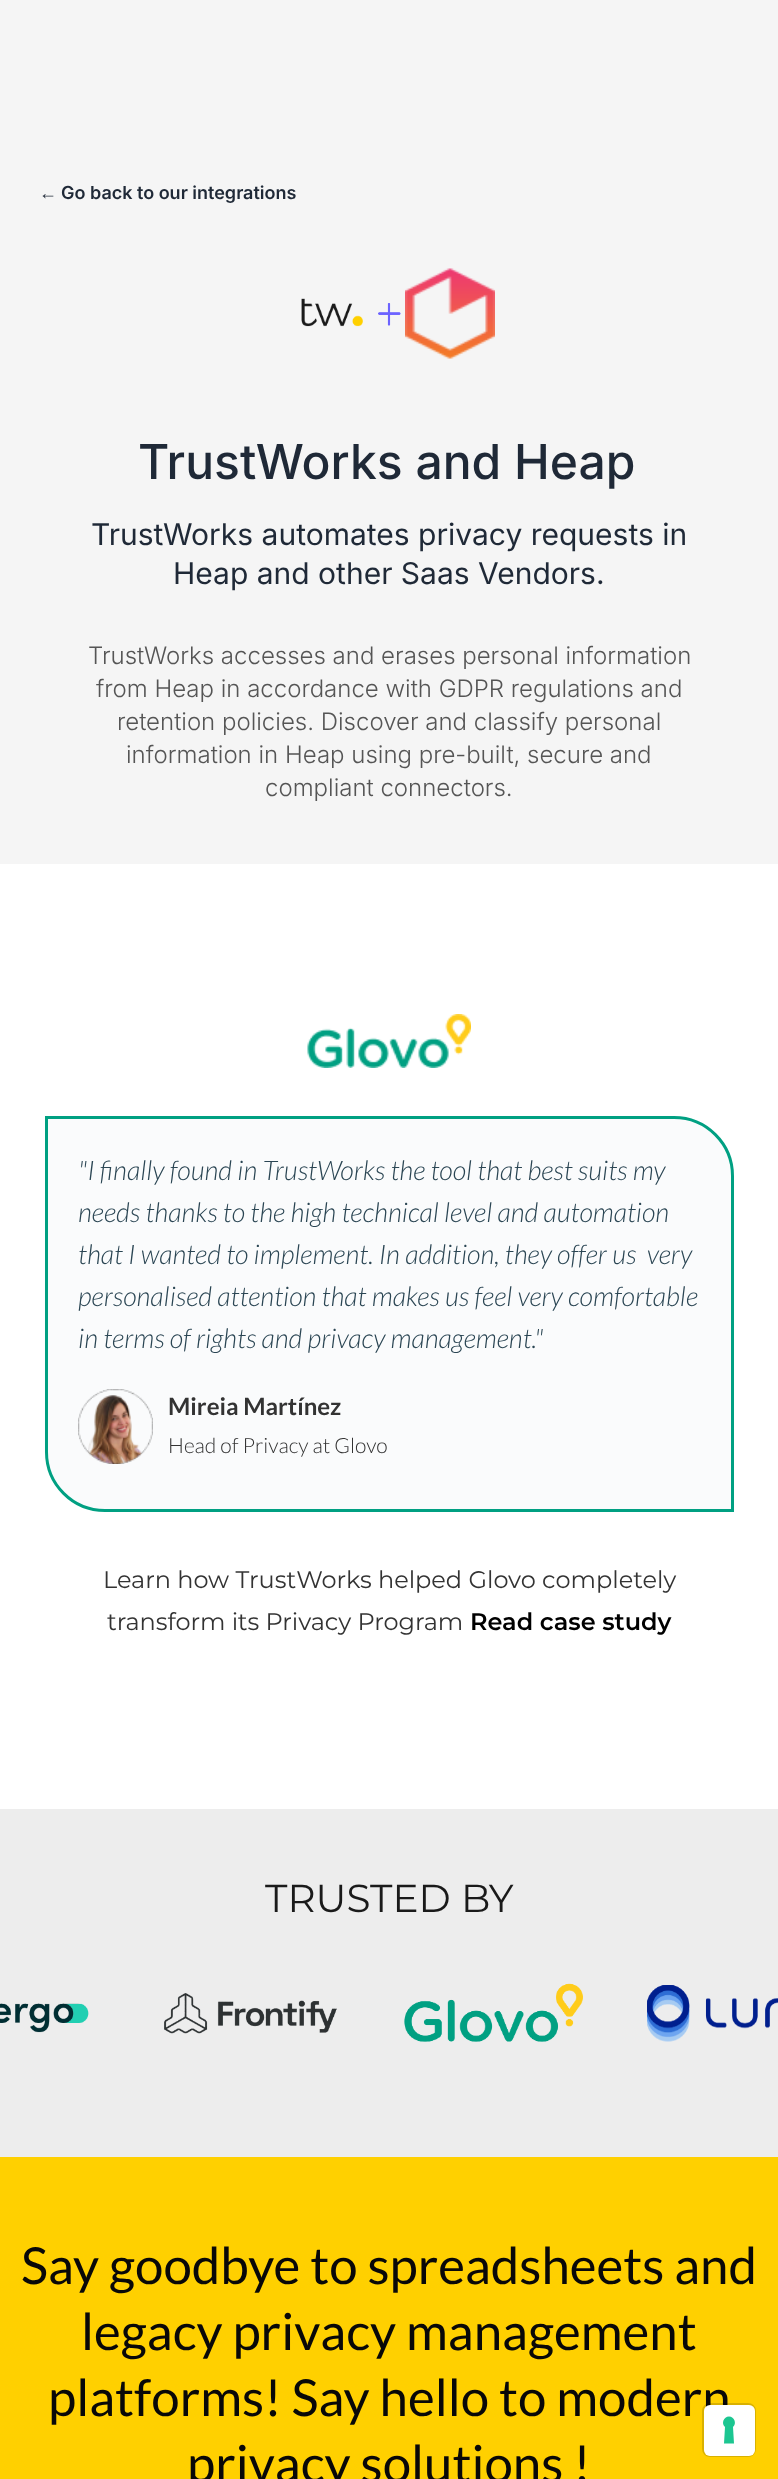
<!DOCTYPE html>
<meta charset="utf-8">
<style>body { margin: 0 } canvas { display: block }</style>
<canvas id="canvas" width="778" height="2479"></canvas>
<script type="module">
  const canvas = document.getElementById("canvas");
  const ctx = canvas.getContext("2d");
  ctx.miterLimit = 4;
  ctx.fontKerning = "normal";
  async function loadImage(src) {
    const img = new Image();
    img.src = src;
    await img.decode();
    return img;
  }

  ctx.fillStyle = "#f5f5f5";
  ctx.fillRect(0, 0, 778, 2479);
  ctx.font = "bold 18px Liberation Sans";
  ctx.fillStyle = "#1f2937";
  ctx.fillText("←", 39, 199);
  ctx.font = "600 18px Inter";
  ctx.fillText("Go back to our integrations", 61, 199);
  ctx.drawImage(await loadImage("img1.png"), 301, 298, 62, 29);
  ctx.drawImage(await loadImage("img2.png"), 378, 303, 23, 23);
  ctx.drawImage(await loadImage("img3.png"), 405, 268, 90, 91);
  ctx.font = "500 48px Inter";
  ctx.fillText("TrustWorks and Heap", 138, 479);
  ctx.font = "30px Inter";
  ctx.fillText("TrustWorks automates privacy requests in", 91, 545);
  ctx.fillText("Heap and other Saas Vendors.", 173, 584);
  ctx.font = "300 24px Inter";
  ctx.fillStyle = "#555555";
  ctx.fillText("TrustWorks accesses and erases personal information", 88, 664);
  ctx.fillText("from Heap in accordance with GDPR regulations and", 96, 697);
  ctx.fillText("retention policies. Discover and classify personal", 117, 730);
  ctx.fillText("information in Heap using pre-built, secure and", 126, 763);
  ctx.fillText("compliant connectors.", 265, 796);
  ctx.fillStyle = "#ffffff";
  ctx.fillRect(0, 864, 778, 945);
  ctx.drawImage(await loadImage("img4.png"), 307, 1014, 164, 54);
  ctx.fillStyle = "#fafbfc";
  ctx.beginPath();
  ctx.roundRect(46.5, 1117.5, 686, 393, [0, 58.5, 0, 58.5]);
  ctx.fill();
  ctx.strokeStyle = "#00a082";
  ctx.lineWidth = 3;
  ctx.stroke();
  ctx.font = "italic 300 27px Lato";
  ctx.fillStyle = "#2a4553";
  ctx.fillText("\"I finally found in TrustWorks the tool that best suits my", 78, 1180);
  ctx.fillText("needs thanks to the high technical level and automation", 78, 1222);
  ctx.fillText("that I wanted to implement. In addition, they offer us  very", 78, 1264);
  ctx.fillText("personalised attention that makes us feel very comfortable", 78, 1306);
  ctx.fillText("in terms of rights and privacy management.\"", 78, 1348);
  ctx.drawImage(await loadImage("img5.png"), 78, 1389, 75, 75);
  ctx.font = "bold 24px Lato";
  ctx.fillStyle = "#333333";
  ctx.fillText("Mireia Martínez", 168, 1415);
  ctx.font = "300 21px Lato";
  ctx.fillText("Head of Privacy at Glovo", 168, 1453);
  ctx.font = "24px Montserrat";
  ctx.fillText("Learn how TrustWorks helped Glovo completely", 103, 1588);
  ctx.fillText("transform its Privacy Program", 107, 1630);
  ctx.font = "600 24px Montserrat";
  ctx.fillStyle = "#000000";
  ctx.fillText("Read case study", 470, 1630);
  ctx.fillStyle = "#ededed";
  ctx.fillRect(0, 1809, 778, 348);
  ctx.font = "39px Montserrat";
  ctx.fillStyle = "#1a1a1a";
  ctx.fillText("TRUSTED BY", 265, 1912);
  ctx.drawImage(await loadImage("img6.png"), 0, 2003, 89, 30);
  ctx.drawImage(await loadImage("img7.png"), 164, 1993, 173, 41);
  ctx.drawImage(await loadImage("img8.png"), 404, 1983, 179, 59);
  ctx.drawImage(await loadImage("img9.png"), 647, 1985, 131, 57);
  ctx.fillStyle = "#ffd000";
  ctx.fillRect(0, 2157, 778, 322);
  ctx.font = "51px Lato";
  ctx.fillStyle = "#090808";
  ctx.fillText("Say goodbye to spreadsheets and", 21, 2284);
  ctx.fillText("legacy privacy management", 81, 2350);
  ctx.fillText("platforms! Say hello to modern", 48, 2416);
  ctx.fillText("privacy solutions !", 187, 2482);
  ctx.beginPath();
  ctx.roundRect(703, 2404, 52, 52, 7);
  ctx.strokeStyle = "rgba(0, 0, 0, 0.15)";
  ctx.lineWidth = 2;
  ctx.stroke();
  ctx.fillStyle = "#ffffff";
  ctx.beginPath();
  ctx.roundRect(704, 2405, 51, 51, 6);
  ctx.fill();
  ctx.fillStyle = "#1cc691";
  ctx.beginPath();
  ctx.moveTo(729, 2416.5);
  ctx.bezierCurveTo(734.5, 2416.5, 737, 2423.5, 733, 2427);
  ctx.lineTo(734, 2443.5);
  ctx.lineTo(724, 2443.5);
  ctx.lineTo(725, 2427);
  ctx.bezierCurveTo(721, 2423.5, 723.5, 2416.5, 729, 2416.5);
  ctx.closePath();
  ctx.fill("evenodd");
</script>
